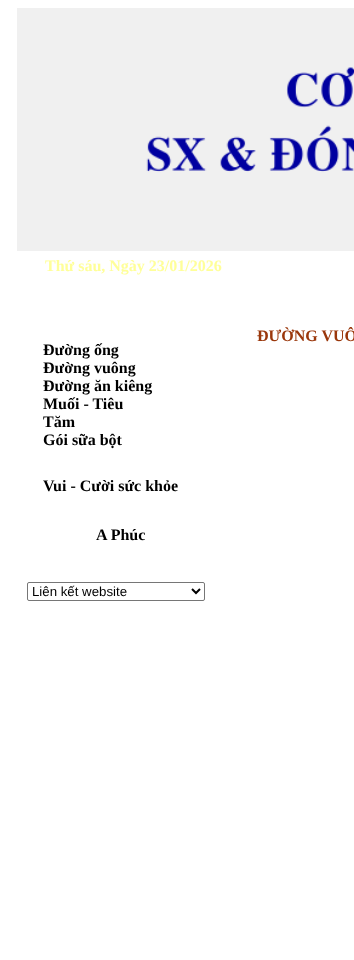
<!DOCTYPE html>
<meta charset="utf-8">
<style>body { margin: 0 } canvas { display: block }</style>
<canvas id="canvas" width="354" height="960"></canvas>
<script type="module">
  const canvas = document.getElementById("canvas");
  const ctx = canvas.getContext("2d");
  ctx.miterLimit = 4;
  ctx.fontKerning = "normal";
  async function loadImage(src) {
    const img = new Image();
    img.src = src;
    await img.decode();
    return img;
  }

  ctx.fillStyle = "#ffffff";
  ctx.fillRect(0, 0, 354, 960);
  ctx.drawImage(await loadImage("img1.png"), 17, 8, 337, 243);
  ctx.font = "bold 16px Liberation Serif";
  ctx.fillStyle = "#ffff99";
  ctx.fillText("Thứ sáu, Ngày 23/01/2026", 45, 271);
  ctx.fillStyle = "#9a370b";
  ctx.fillText("ĐƯỜNG VUÔ", 257, 341);
  ctx.fillStyle = "#000000";
  ctx.fillText("Đường ống", 43, 355);
  ctx.fillText("Đường vuông", 43, 373);
  ctx.fillText("Đường ăn kiêng", 43, 391);
  ctx.fillText("Muối - Tiêu", 43, 409);
  ctx.fillText("Tăm", 43, 427);
  ctx.fillText("Gói sữa bột", 43, 445);
  ctx.fillText("Vui - Cười sức khỏe", 43, 491);
  ctx.fillText("A Phúc", 96, 540);
  ctx.beginPath();
  ctx.roundRect(27.5, 582.5, 177, 18, 1.5);
  ctx.strokeStyle = "#767676";
  ctx.stroke();
  ctx.beginPath();
  ctx.moveTo(192, 589);
  ctx.lineTo(196, 593);
  ctx.lineTo(200, 589);
  ctx.strokeStyle = "#000000";
  ctx.lineWidth = 2;
  ctx.stroke();
  ctx.font = "13.25px Liberation Sans";
  ctx.fillText("Liên kết website", 32, 596);
</script>
